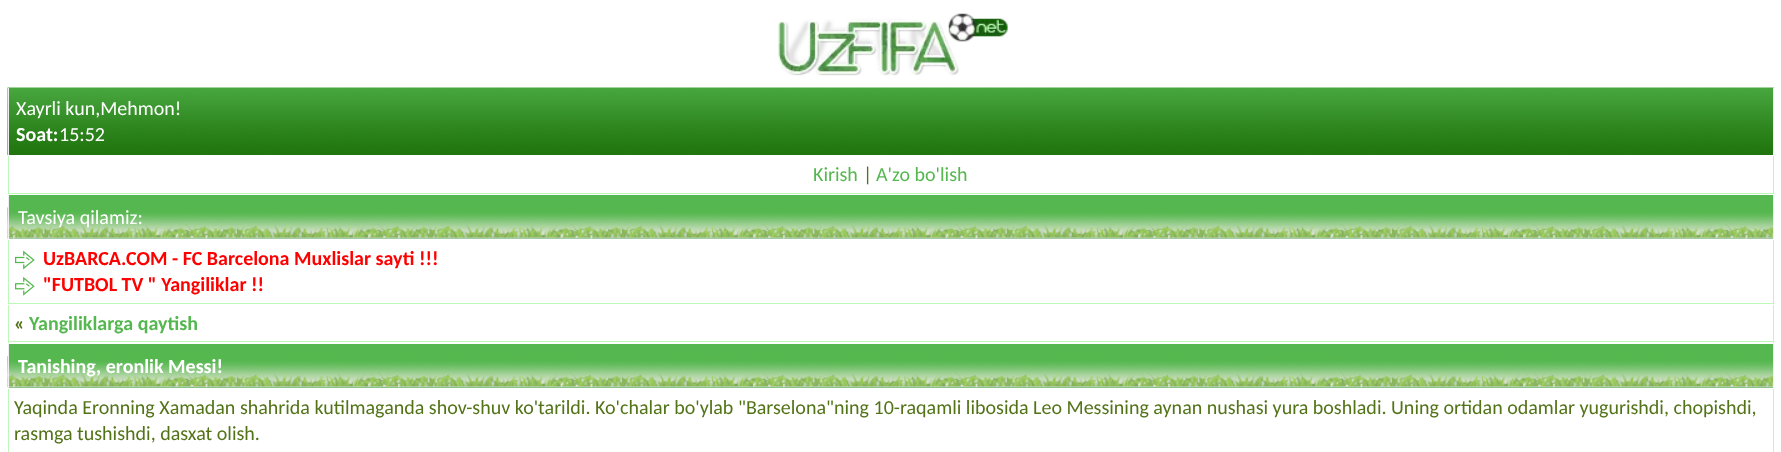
<!DOCTYPE html>
<meta charset="utf-8">
<style>body { margin: 0 } canvas { display: block }</style>
<canvas id="canvas" width="1781" height="452"></canvas>
<script type="module">
  const canvas = document.getElementById("canvas");
  const ctx = canvas.getContext("2d");
  ctx.miterLimit = 4;
  ctx.fontKerning = "normal";
  async function loadImage(src) {
    const img = new Image();
    img.src = src;
    await img.decode();
    return img;
  }

  ctx.fillStyle = "#ffffff";
  ctx.fillRect(0, 0, 1781, 452);
  ctx.drawImage(await loadImage("img1.png"), 777, 13, 231, 63);
  ctx.drawImage(await loadImage("img2.png"), 7, 87, 1767, 68);
  ctx.fillStyle = "#efefef";
  ctx.fillRect(1773, 88, 1, 67);
  ctx.fillRect(8, 88, 1, 67);
  ctx.font = "20px Carlito";
  ctx.fillStyle = "#ffffff";
  ctx.fillText("Xayrli kun,Mehmon!", 16, 115);
  ctx.font = "bold 20px Carlito";
  ctx.fillText("Soat:", 16, 141);
  ctx.font = "20px Carlito";
  ctx.fillText("15:52", 59, 141);
  ctx.fillStyle = "#bcf8b8";
  ctx.fillRect(1773, 156, 1, 38);
  ctx.fillRect(8, 193, 1766, 1);
  ctx.fillRect(8, 156, 1, 38);
  ctx.fillStyle = "#55b74f";
  ctx.fillText("Kirish", 813, 181);
  ctx.fillStyle = "#527317";
  ctx.fillText("|", 863, 181);
  ctx.fillStyle = "#55b74f";
  ctx.fillText("A'zo bo'lish", 876, 181);
  ctx.fillRect(9, 195, 1764, 44);
  ctx.drawImage(await loadImage("img3.png"), 7, 207, 1766, 32);
  ctx.fillStyle = "#efefef";
  ctx.fillRect(1773, 195, 1, 44);
  ctx.fillRect(8, 195, 1, 44);
  ctx.fillStyle = "#ffffff";
  ctx.fillText("Tavsiya qilamiz:", 18, 224);
  ctx.fillStyle = "#bcf8b8";
  ctx.fillRect(1773, 240, 1, 64);
  ctx.fillRect(8, 303, 1766, 1);
  ctx.fillRect(8, 240, 1, 64);
  ctx.drawImage(await loadImage("img4.png"), 15, 250, 20, 20);
  ctx.font = "bold 20px Carlito";
  ctx.fillStyle = "#ff0000";
  ctx.fillText("UzBARCA.COM - FC Barcelona Muxlislar sayti !!!", 43, 265);
  ctx.drawImage(await loadImage("img5.png"), 15, 276, 20, 20);
  ctx.fillText("\"FUTBOL TV \" Yangiliklar !!", 43, 291);
  ctx.fillStyle = "#bcf8b8";
  ctx.fillRect(1773, 305, 1, 38);
  ctx.fillRect(8, 341, 1766, 1);
  ctx.fillRect(8, 305, 1, 38);
  ctx.fillStyle = "#527317";
  ctx.fillText("«", 14, 330);
  ctx.fillStyle = "#55b74f";
  ctx.fillText("Yangiliklarga qaytish", 29, 330);
  ctx.fillRect(9, 344, 1764, 44);
  ctx.drawImage(await loadImage("img6.png"), 7, 356, 1766, 32);
  ctx.fillStyle = "#efefef";
  ctx.fillRect(1773, 344, 1, 44);
  ctx.fillRect(8, 344, 1, 44);
  ctx.fillStyle = "#ffffff";
  ctx.fillText("Tanishing, eronlik Messi!", 18, 373);
  ctx.fillStyle = "#bcf8b8";
  ctx.fillRect(1773, 389, 1, 63);
  ctx.fillRect(8, 389, 1, 63);
  ctx.font = "20px Carlito";
  ctx.fillStyle = "#527317";
  ctx.fillText("Yaqinda Eronning Xamadan shahrida kutilmaganda shov-shuv ko'tarildi. Ko'chalar bo'ylab \"Barselona\"ning 10-raqamli libosida Leo Messining aynan nushasi yura boshladi. Uning ortidan odamlar yugurishdi, chopishdi,", 14, 414);
  ctx.fillText("rasmga tushishdi, dasxat olish.", 14, 440);
</script>
